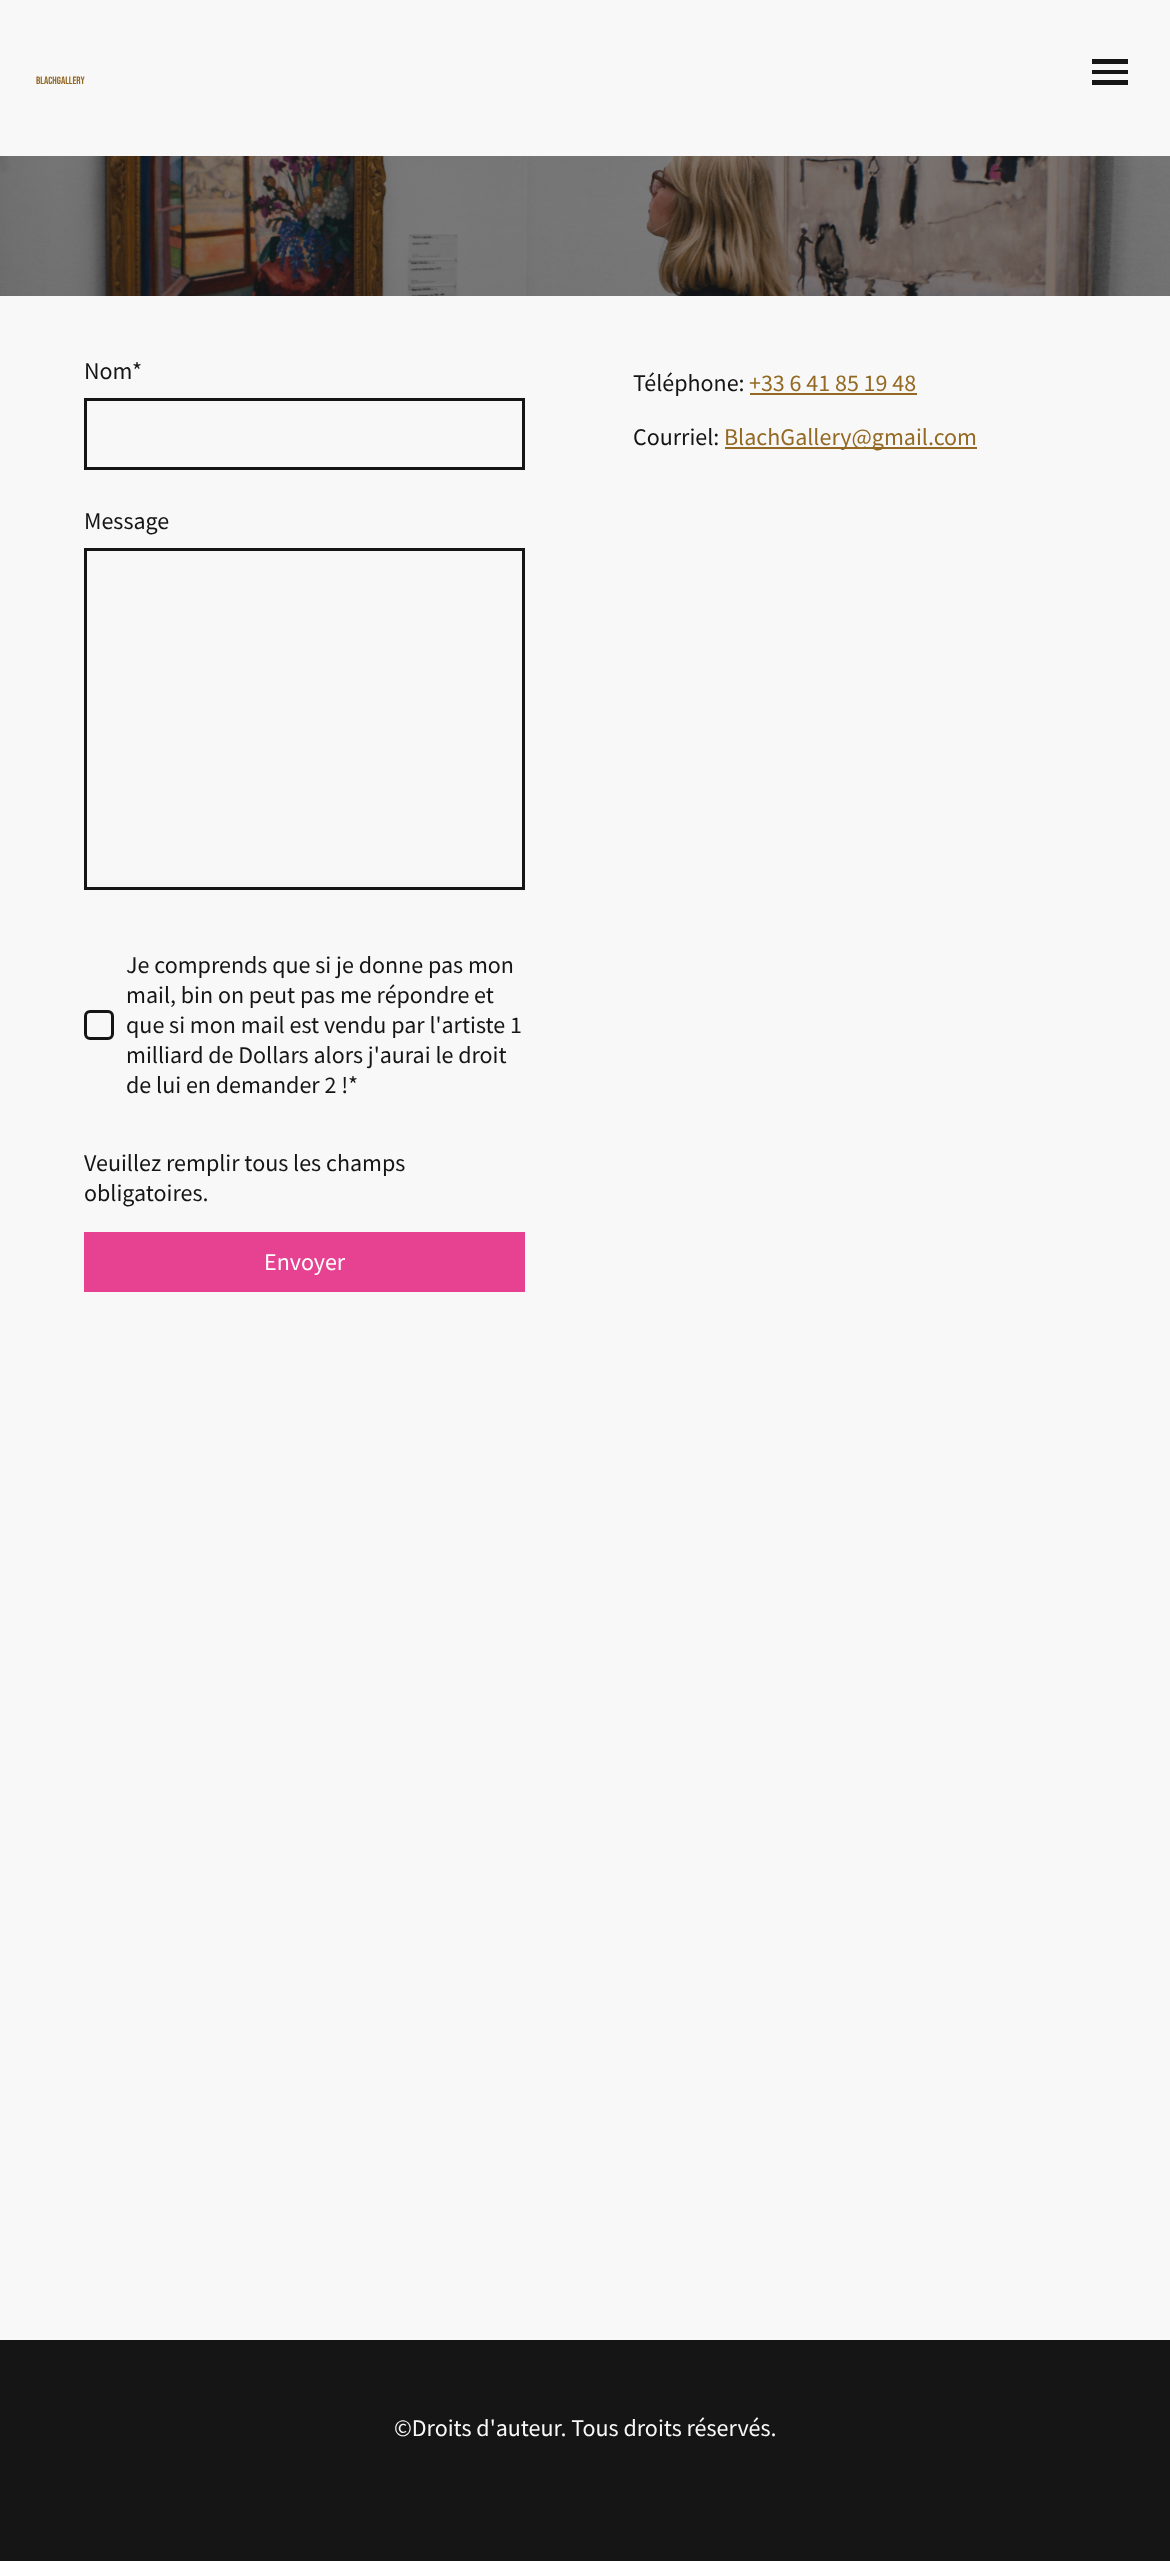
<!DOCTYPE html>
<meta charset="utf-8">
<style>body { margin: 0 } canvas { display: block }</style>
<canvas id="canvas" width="1170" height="2561"></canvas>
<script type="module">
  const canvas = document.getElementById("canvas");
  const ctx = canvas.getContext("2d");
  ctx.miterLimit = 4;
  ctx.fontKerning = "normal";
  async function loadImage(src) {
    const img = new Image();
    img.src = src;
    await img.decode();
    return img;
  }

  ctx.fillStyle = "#f8f8f8";
  ctx.fillRect(0, 0, 1170, 2561);
  ctx.drawImage(await loadImage("img1.png"), 36, 76, 49, 8);
  ctx.fillStyle = "#151515";
  ctx.fillRect(1092, 59, 36, 5);
  ctx.fillRect(1092, 70, 36, 4);
  ctx.fillRect(1092, 80, 36, 5);
  ctx.drawImage(await loadImage("img2.png"), 0, 156, 1170, 140);
  ctx.font = "24px Source Sans Pro";
  ctx.fillText("Nom", 84, 379);
  ctx.fillText("*", 132, 379);
  ctx.strokeStyle = "#151515";
  ctx.lineWidth = 3;
  ctx.strokeRect(85.5, 399.5, 438, 69);
  ctx.fillText("Message", 84, 529);
  ctx.strokeRect(85.5, 549.5, 438, 339);
  ctx.beginPath();
  ctx.roundRect(85.5, 1011.5, 27, 27, 4.5);
  ctx.stroke();
  ctx.fillText("Je comprends que si je donne pas mon", 126, 973);
  ctx.fillText("mail, bin on peut pas me répondre et", 126, 1003);
  ctx.fillText("que si mon mail est vendu par l'artiste 1", 126, 1033);
  ctx.fillText("milliard de Dollars alors j'aurai le droit", 126, 1063);
  ctx.fillText("de lui en demander 2 !*", 126, 1093);
  ctx.fillText("Veuillez remplir tous les champs", 84, 1171);
  ctx.fillText("obligatoires.", 84, 1201);
  ctx.fillStyle = "#e74292";
  ctx.fillRect(84, 1232, 441, 60);
  ctx.fillStyle = "#ffffff";
  ctx.fillText("Envoyer", 264, 1270);
  ctx.fillStyle = "#151515";
  ctx.fillText("Téléphone:", 633, 391);
  ctx.fillStyle = "#946923";
  ctx.fillText("+33 6 41 85 19 48", 749, 391);
  ctx.fillRect(750, 393, 167, 2);
  ctx.fillStyle = "#151515";
  ctx.fillText("Courriel:", 633, 445);
  ctx.fillStyle = "#946923";
  ctx.fillRect(725, 447, 252, 2);
  ctx.fillText("BlachGallery@gmail.com", 724, 445);
  ctx.fillStyle = "#151515";
  ctx.fillRect(0, 2340, 1170, 221);
  ctx.fillStyle = "#f8f8f8";
  ctx.fillText("©Droits d'auteur. Tous droits réservés.", 394, 2436);
</script>
